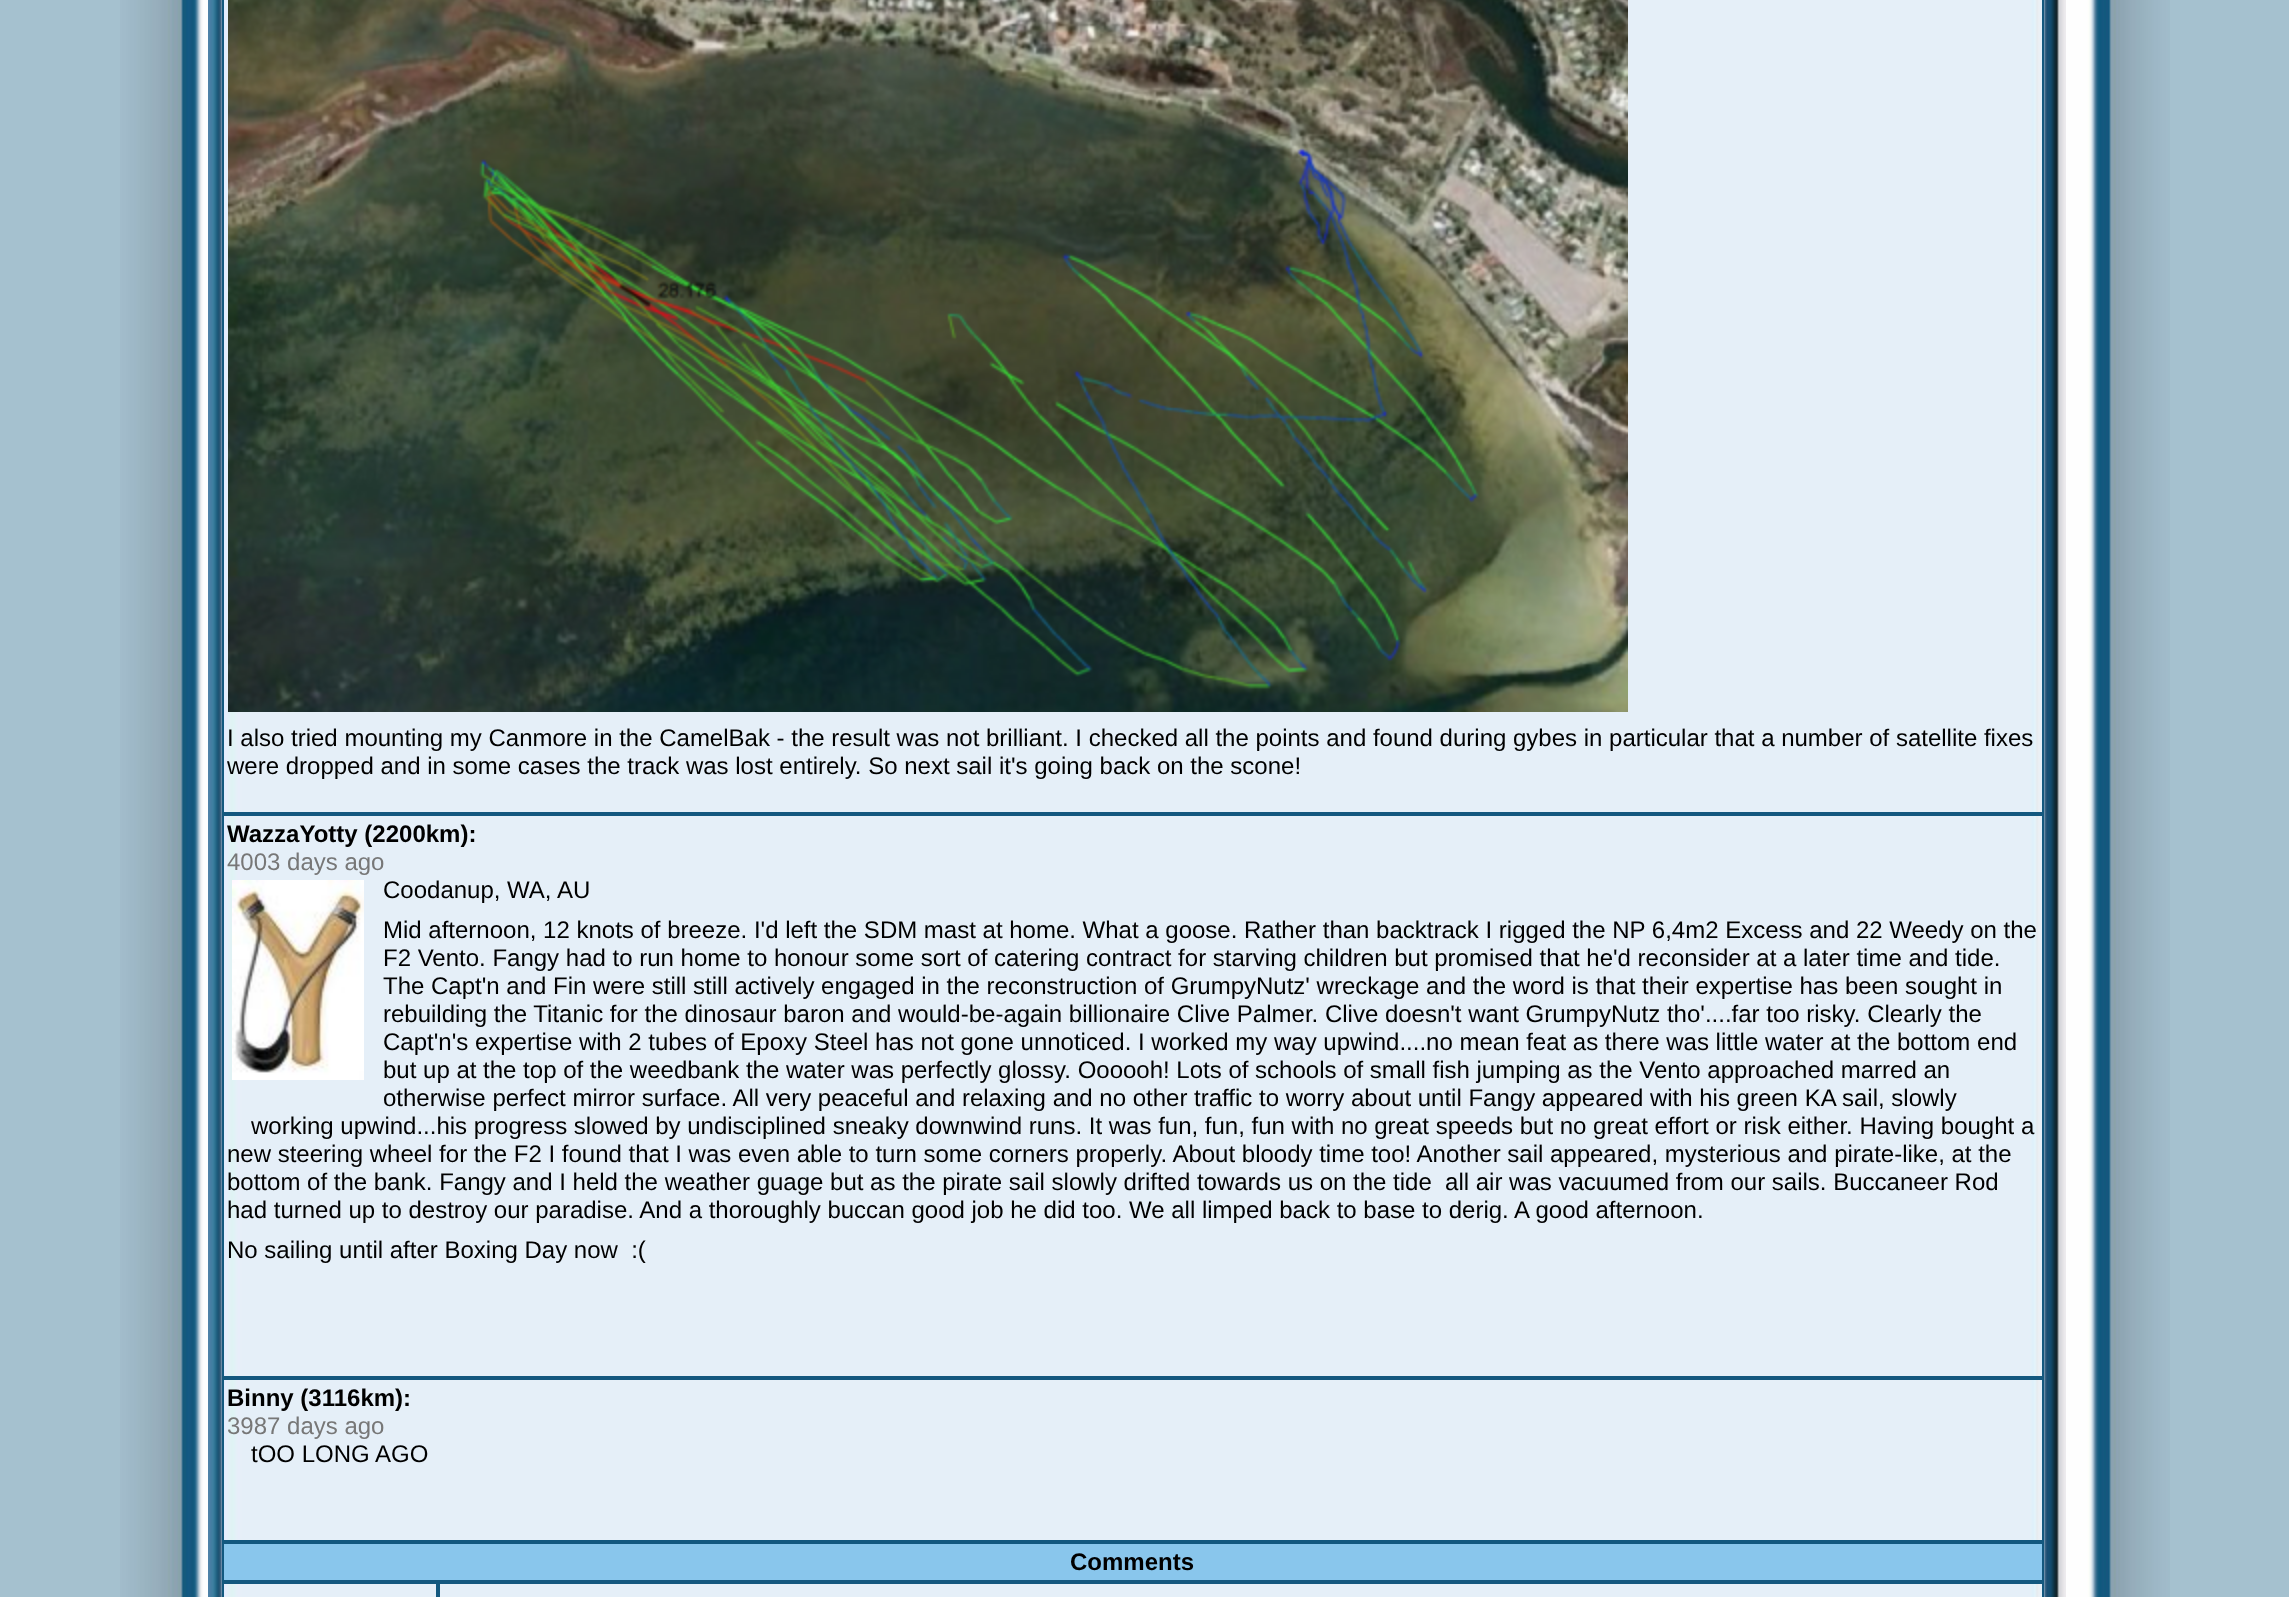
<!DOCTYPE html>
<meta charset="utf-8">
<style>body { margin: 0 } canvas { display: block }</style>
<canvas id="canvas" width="2289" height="1597"></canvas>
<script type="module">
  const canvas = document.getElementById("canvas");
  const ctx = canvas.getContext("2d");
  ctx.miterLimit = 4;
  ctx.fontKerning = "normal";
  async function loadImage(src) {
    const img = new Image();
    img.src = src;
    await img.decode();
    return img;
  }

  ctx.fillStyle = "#a5c1cf";
  ctx.fillRect(0, 0, 2289, 1597);
  ctx.drawImage(await loadImage("img1.png"), 120, 0, 2050, 1597);
  ctx.drawImage(await loadImage("img2.png"), 208, 0, 1858, 1597);
  ctx.strokeStyle = "#13587f";
  ctx.lineWidth = 2;
  ctx.strokeRect(223, -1, 1820, 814);
  ctx.drawImage(await loadImage("img3.png"), 228, 0, 1400, 712);
  ctx.font = "24px Liberation Sans";
  ctx.fillStyle = "#000000";
  ctx.fillText("I also tried mounting my Canmore in the CamelBak - the result was not brilliant. I checked all the points and found during gybes in particular that a number of satellite fixes", 227, 746);
  ctx.fillText("were dropped and in some cases the track was lost entirely. So next sail it's going back on the scone!", 227, 774);
  ctx.strokeRect(223, 815, 1820, 562);
  ctx.font = "bold 24px Liberation Sans";
  ctx.fillText("WazzaYotty (2200km):", 227, 842);
  ctx.font = "24px Liberation Sans";
  ctx.fillStyle = "#777777";
  ctx.fillText("4003 days ago", 227, 870);
  ctx.drawImage(await loadImage("img4.png"), 232, 880, 132, 200);
  ctx.fillStyle = "#000000";
  ctx.fillText("Coodanup, WA, AU", 383, 898);
  ctx.fillText("Mid afternoon, 12 knots of breeze. I'd left the SDM mast at home. What a goose. Rather than backtrack I rigged the NP 6,4m2 Excess and 22 Weedy on the", 383, 938);
  ctx.fillText("F2 Vento. Fangy had to run home to honour some sort of catering contract for starving children but promised that he'd reconsider at a later time and tide.", 383, 966);
  ctx.fillText("The Capt'n and Fin were still still actively engaged in the reconstruction of GrumpyNutz' wreckage and the word is that their expertise has been sought in", 383, 994);
  ctx.fillText("rebuilding the Titanic for the dinosaur baron and would-be-again billionaire Clive Palmer. Clive doesn't want GrumpyNutz tho'....far too risky. Clearly the", 383, 1022);
  ctx.fillText("Capt'n's expertise with 2 tubes of Epoxy Steel has not gone unnoticed. I worked my way upwind....no mean feat as there was little water at the bottom end", 383, 1050);
  ctx.fillText("but up at the top of the weedbank the water was perfectly glossy. Oooooh! Lots of schools of small fish jumping as the Vento approached marred an", 383, 1078);
  ctx.fillText("otherwise perfect mirror surface. All very peaceful and relaxing and no other traffic to worry about until Fangy appeared with his green KA sail, slowly", 383, 1106);
  ctx.fillText("working upwind...his progress slowed by undisciplined sneaky downwind runs. It was fun, fun, fun with no great speeds but no great effort or risk either. Having bought a", 251, 1134);
  ctx.fillText("new steering wheel for the F2 I found that I was even able to turn some corners properly. About bloody time too! Another sail appeared, mysterious and pirate-like, at the", 227, 1162);
  ctx.fillText("bottom of the bank. Fangy and I held the weather guage but as the pirate sail slowly drifted towards us on the tide  all air was vacuumed from our sails. Buccaneer Rod", 227, 1190);
  ctx.fillText("had turned up to destroy our paradise. And a thoroughly buccan good job he did too. We all limped back to base to derig. A good afternoon.", 227, 1218);
  ctx.fillText("No sailing until after Boxing Day now  :(", 227, 1258);
  ctx.strokeRect(223, 1379, 1820, 162);
  ctx.font = "bold 24px Liberation Sans";
  ctx.fillText("Binny (3116km):", 227, 1406);
  ctx.font = "24px Liberation Sans";
  ctx.fillStyle = "#777777";
  ctx.fillText("3987 days ago", 227, 1434);
  ctx.fillStyle = "#000000";
  ctx.fillText("tOO LONG AGO", 251, 1462);
  ctx.fillStyle = "#89c6ec";
  ctx.beginPath();
  ctx.rect(223, 1543, 1820, 38);
  ctx.fill();
  ctx.stroke();
  ctx.font = "bold 24px Liberation Sans";
  ctx.fillStyle = "#000000";
  ctx.fillText("Comments", 1070, 1570);
  ctx.strokeRect(223, 1583, 214, 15);
  ctx.strokeRect(439, 1583, 1604, 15);
</script>
